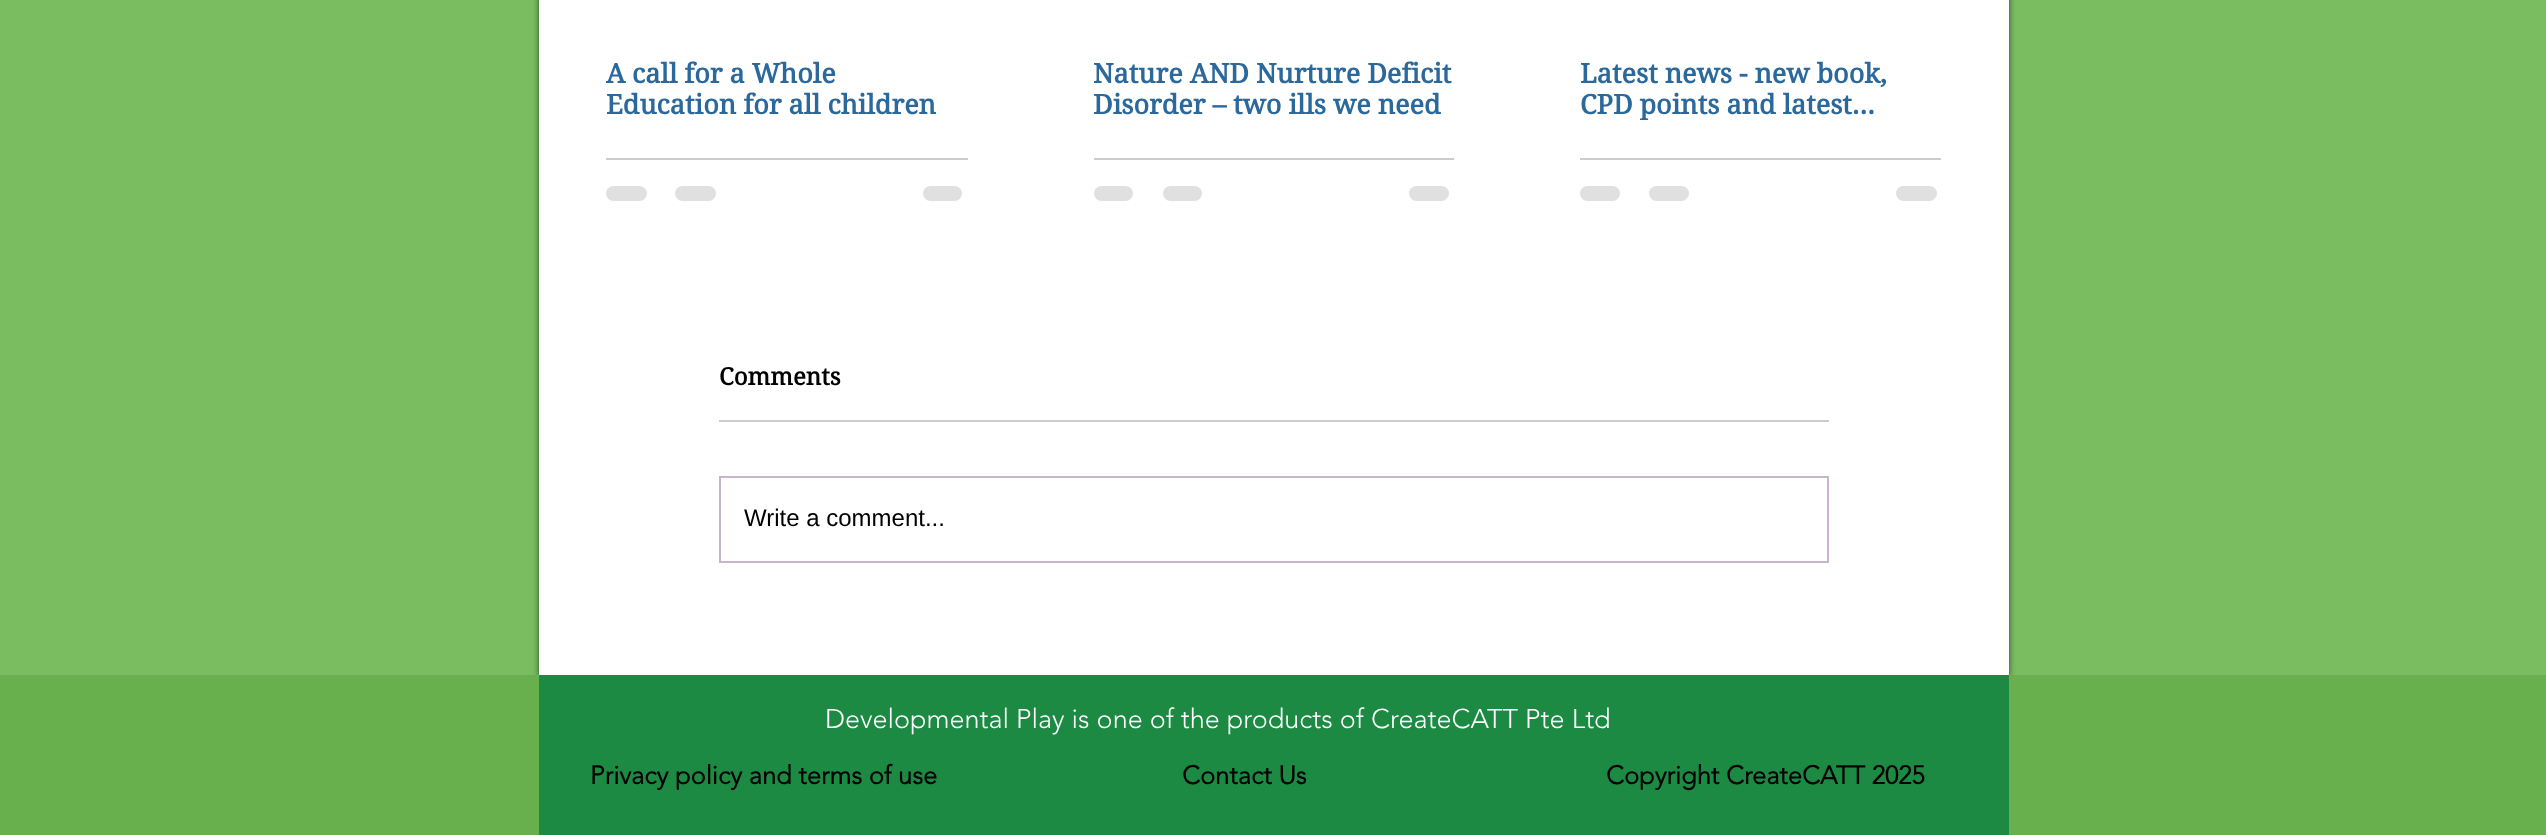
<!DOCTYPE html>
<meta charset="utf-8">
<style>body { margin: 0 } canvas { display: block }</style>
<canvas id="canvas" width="2546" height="835"></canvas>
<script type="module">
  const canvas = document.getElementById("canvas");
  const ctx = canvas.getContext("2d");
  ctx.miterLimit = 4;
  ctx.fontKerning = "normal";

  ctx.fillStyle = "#79bd60";
  ctx.fillRect(0, 0, 2546, 835);
  ctx.fillStyle = "rgba(0, 0, 0, 0.6)";
  ctx.filter = "blur(3px)";
  ctx.beginPath();
  ctx.rect(539, -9, 1470, 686);
  ctx.fill();
  ctx.filter = "none";
  ctx.fillStyle = "#ffffff";
  ctx.fillRect(539, 0, 1470, 675);
  ctx.font = "bold 27px 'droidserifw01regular'";
  ctx.fillStyle = "#2b689c";
  ctx.fillText("A call for a Whole", 606, 83);
  ctx.fillText("Education for all children", 606, 114);
  ctx.fillStyle = "#cccccc";
  ctx.fillRect(606, 158, 362, 2);
  ctx.fillStyle = "#e0e0e0";
  ctx.beginPath();
  ctx.roundRect(606, 186, 41, 15, 7.5);
  ctx.fill();
  ctx.beginPath();
  ctx.roundRect(675, 186, 41, 15, 7.5);
  ctx.fill();
  ctx.beginPath();
  ctx.roundRect(923, 186, 39, 15, 7.5);
  ctx.fill();
  ctx.fillStyle = "#2b689c";
  ctx.fillText("Nature AND Nurture Deficit", 1093, 83);
  ctx.fillText("Disorder – two ills we need", 1093, 114);
  ctx.fillStyle = "#cccccc";
  ctx.fillRect(1094, 158, 360, 2);
  ctx.fillStyle = "#e0e0e0";
  ctx.beginPath();
  ctx.roundRect(1094, 186, 39, 15, 7.5);
  ctx.fill();
  ctx.beginPath();
  ctx.roundRect(1163, 186, 39, 15, 7.5);
  ctx.fill();
  ctx.beginPath();
  ctx.roundRect(1409, 186, 40, 15, 7.5);
  ctx.fill();
  ctx.fillStyle = "#2b689c";
  ctx.fillText("Latest news - new book,", 1580, 83);
  ctx.save();
  ctx.beginPath();
  ctx.rect(1580, 57, 361, 63);
  ctx.clip();
  ctx.fillText("CPD points and latest…", 1580, 114);
  ctx.restore();
  ctx.fillStyle = "#cccccc";
  ctx.fillRect(1580, 158, 361, 2);
  ctx.fillStyle = "#e0e0e0";
  ctx.beginPath();
  ctx.roundRect(1580, 186, 40, 15, 7.5);
  ctx.fill();
  ctx.beginPath();
  ctx.roundRect(1649, 186, 40, 15, 7.5);
  ctx.fill();
  ctx.beginPath();
  ctx.roundRect(1896, 186, 41, 15, 7.5);
  ctx.fill();
  ctx.font = "bold 24px 'droidserifw01regular'";
  ctx.fillStyle = "#000000";
  ctx.fillText("Comments", 719, 385);
  ctx.fillStyle = "#cccccc";
  ctx.fillRect(719, 420, 1110, 2);
  ctx.strokeStyle = "#c9b5cb";
  ctx.lineWidth = 2;
  ctx.strokeRect(720, 477, 1108, 85);
  ctx.font = "24px Liberation Sans";
  ctx.fillStyle = "#000000";
  ctx.fillText("Write a comment...", 744, 526);
  ctx.fillStyle = "#68b04d";
  ctx.fillRect(0, 675, 2546, 160);
  ctx.fillStyle = "#1c8a43";
  ctx.fillRect(539, 675, 1470, 160);
  ctx.font = "300 27px 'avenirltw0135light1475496'";
  ctx.fillStyle = "#ffffff";
  ctx.fillText("Developmental Play is one of the products of CreateCATT Pte Ltd", 825, 728);
  ctx.font = "bold 25.5px 'avenirltw0135light1475496'";
  ctx.fillStyle = "#000000";
  ctx.fillText("Privacy policy and terms of use", 590, 784);
  ctx.fillText("Contact Us", 1182, 784);
  ctx.fillText("Copyright CreateCATT 2025", 1606, 784);
</script>
